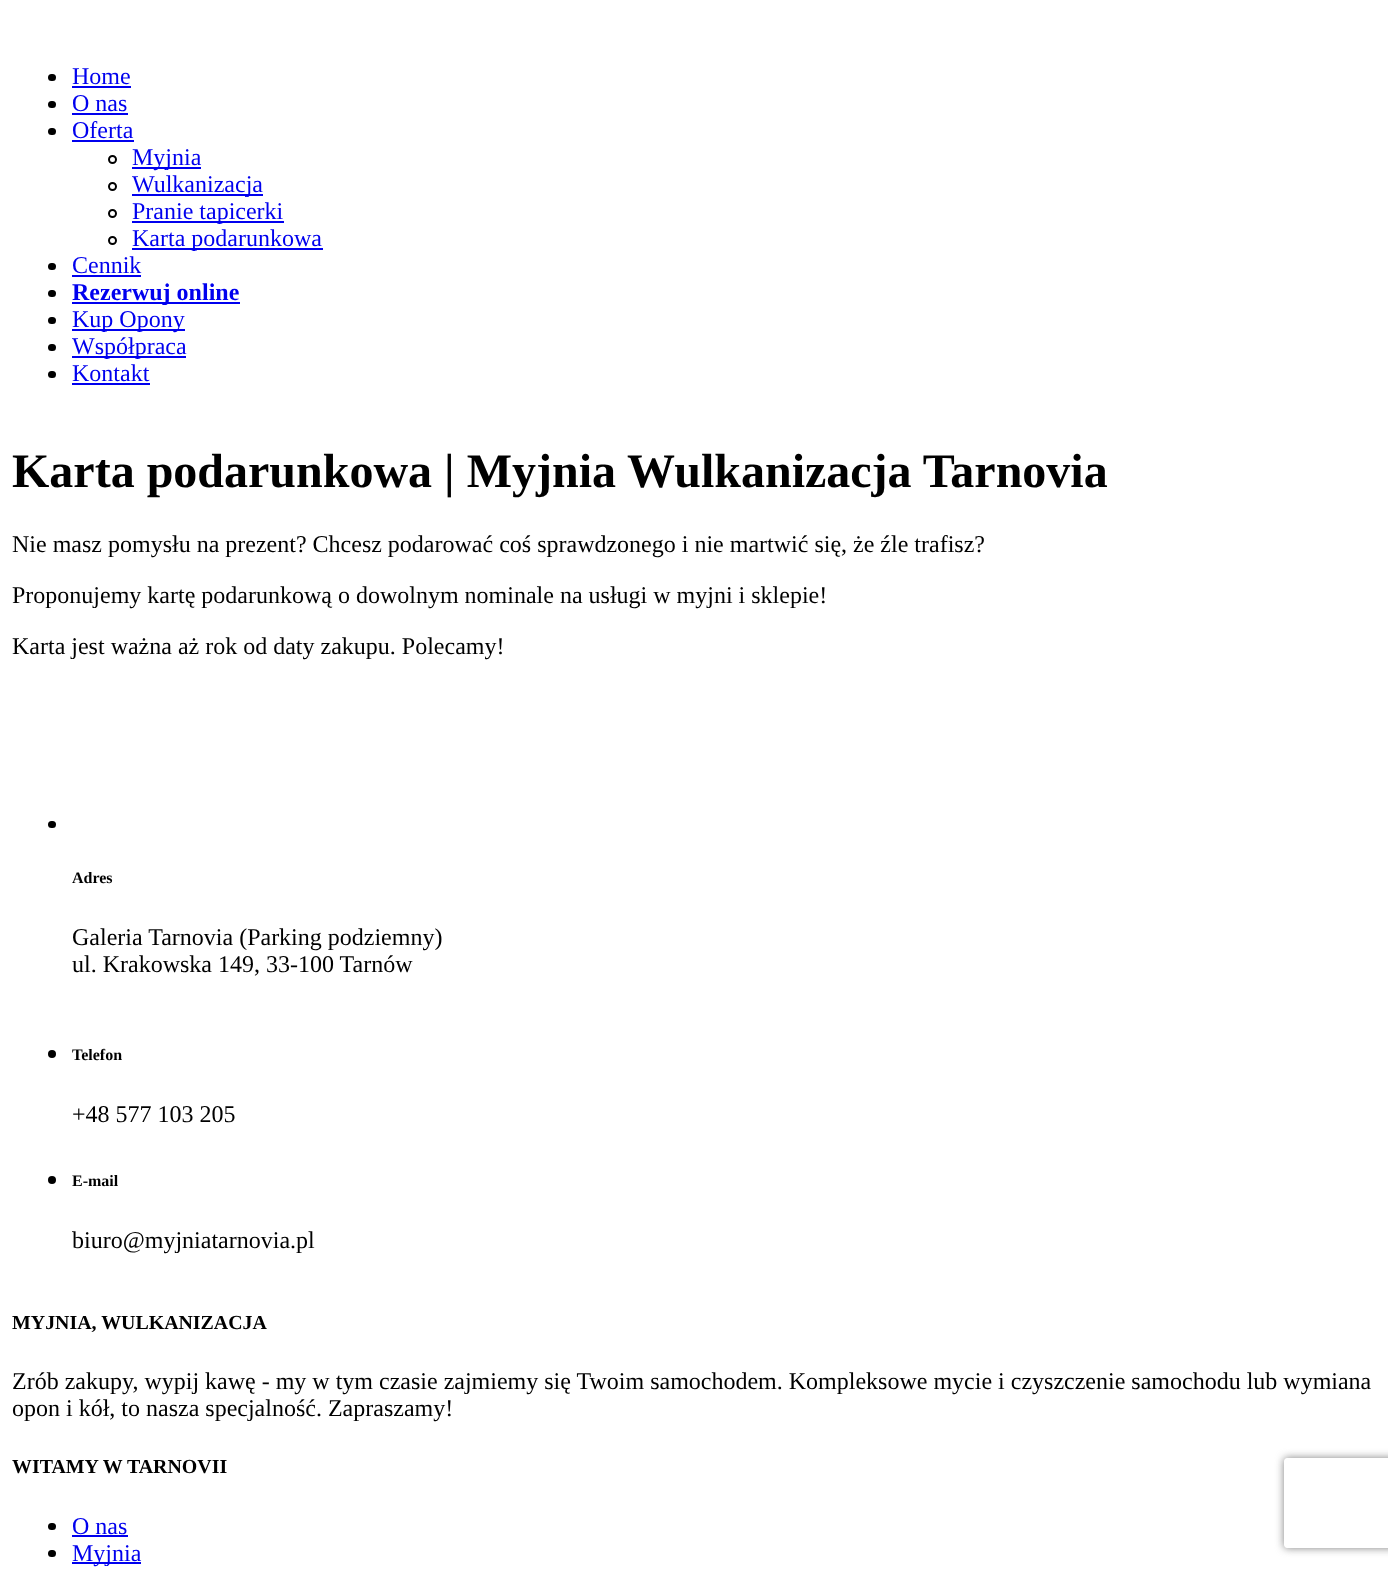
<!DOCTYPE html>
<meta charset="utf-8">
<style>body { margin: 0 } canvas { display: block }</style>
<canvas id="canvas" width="1388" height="1569"></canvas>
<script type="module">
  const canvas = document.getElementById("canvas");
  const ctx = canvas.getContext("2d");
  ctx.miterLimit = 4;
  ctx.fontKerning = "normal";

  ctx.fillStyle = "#ffffff";
  ctx.fillRect(0, 0, 1388, 1569);
  ctx.fillStyle = "#000000";
  ctx.beginPath();
  ctx.roundRect(48, 74, 8, 7, 3.5);
  ctx.fill();
  ctx.font = "24px Liberation Serif";
  ctx.fillStyle = "#0000ee";
  ctx.fillText("Home", 72, 84);
  ctx.fillRect(72, 86, 59, 2);
  ctx.fillStyle = "#000000";
  ctx.beginPath();
  ctx.roundRect(48, 101, 8, 7, 3.5);
  ctx.fill();
  ctx.fillStyle = "#0000ee";
  ctx.fillText("O nas", 72, 111);
  ctx.fillRect(72, 113, 56, 2);
  ctx.fillStyle = "#000000";
  ctx.beginPath();
  ctx.roundRect(48, 128, 8, 7, 3.5);
  ctx.fill();
  ctx.fillStyle = "#0000ee";
  ctx.fillText("Oferta", 72, 138);
  ctx.fillRect(72, 140, 62, 2);
  ctx.beginPath();
  ctx.arc(112.5, 159.5, 3.5, 0, Math.PI * 2);
  ctx.strokeStyle = "#000000";
  ctx.lineWidth = 2;
  ctx.stroke();
  ctx.fillRect(132, 167, 69, 2);
  ctx.fillText("Myjnia", 132, 165);
  ctx.beginPath();
  ctx.arc(112.5, 186.5, 3.5, 0, Math.PI * 2);
  ctx.stroke();
  ctx.fillRect(132, 194, 131, 2);
  ctx.fillText("Wulkanizacja", 132, 192);
  ctx.beginPath();
  ctx.arc(112.5, 213.5, 3.5, 0, Math.PI * 2);
  ctx.stroke();
  ctx.fillRect(132, 221, 152, 2);
  ctx.fillText("Pranie tapicerki", 132, 219);
  ctx.beginPath();
  ctx.arc(112.5, 240.5, 3.5, 0, Math.PI * 2);
  ctx.stroke();
  ctx.fillRect(132, 248, 191, 2);
  ctx.fillText("Karta podarunkowa", 132, 246);
  ctx.fillStyle = "#000000";
  ctx.beginPath();
  ctx.roundRect(48, 263, 8, 7, 3.5);
  ctx.fill();
  ctx.fillStyle = "#0000ee";
  ctx.fillText("Cennik", 72, 273);
  ctx.fillRect(72, 275, 69, 2);
  ctx.fillStyle = "#000000";
  ctx.beginPath();
  ctx.roundRect(48, 290, 8, 7, 3.5);
  ctx.fill();
  ctx.fillStyle = "#0000ee";
  ctx.fillRect(72, 302, 168, 2);
  ctx.font = "bold 24px Liberation Serif";
  ctx.fillText("Rezerwuj online", 72, 300);
  ctx.fillStyle = "#000000";
  ctx.beginPath();
  ctx.roundRect(48, 317, 8, 7, 3.5);
  ctx.fill();
  ctx.fillStyle = "#0000ee";
  ctx.fillRect(72, 329, 113, 2);
  ctx.font = "24px Liberation Serif";
  ctx.fillText("Kup Opony", 72, 327);
  ctx.fillStyle = "#000000";
  ctx.beginPath();
  ctx.roundRect(48, 344, 8, 7, 3.5);
  ctx.fill();
  ctx.fillStyle = "#0000ee";
  ctx.fillRect(72, 356, 114, 2);
  ctx.fillText("Współpraca", 72, 354);
  ctx.fillStyle = "#000000";
  ctx.beginPath();
  ctx.roundRect(48, 371, 8, 7, 3.5);
  ctx.fill();
  ctx.fillStyle = "#0000ee";
  ctx.fillText("Kontakt", 72, 381);
  ctx.fillRect(72, 383, 78, 2);
  ctx.font = "bold 48px Liberation Serif";
  ctx.fillStyle = "#000000";
  ctx.fillText("Karta podarunkowa | Myjnia Wulkanizacja Tarnovia", 12, 487);
  ctx.font = "24px Liberation Serif";
  ctx.fillText("Nie masz pomysłu na prezent? Chcesz podarować coś sprawdzonego i nie martwić się, że źle trafisz?", 12, 552);
  ctx.fillText("Proponujemy kartę podarunkową o dowolnym nominale na usługi w myjni i sklepie!", 12, 603);
  ctx.fillText("Karta jest ważna aż rok od daty zakupu. Polecamy!", 12, 654);
  ctx.beginPath();
  ctx.roundRect(48, 821, 8, 7, 3.5);
  ctx.fill();
  ctx.font = "bold 16px Liberation Serif";
  ctx.fillText("Adres", 72, 883);
  ctx.font = "24px Liberation Serif";
  ctx.fillText("Galeria Tarnovia (Parking podziemny)", 72, 945);
  ctx.fillText("ul. Krakowska 149, 33-100 Tarnów", 72, 972);
  ctx.beginPath();
  ctx.arc(52, 1054, 4, 0, Math.PI * 2);
  ctx.fill();
  ctx.font = "bold 16px Liberation Serif";
  ctx.fillText("Telefon", 72, 1060);
  ctx.font = "24px Liberation Serif";
  ctx.fillText("+48 577 103 205", 72, 1122);
  ctx.beginPath();
  ctx.arc(52, 1180, 4, 0, Math.PI * 2);
  ctx.fill();
  ctx.font = "bold 16px Liberation Serif";
  ctx.fillText("E-mail", 72, 1186);
  ctx.font = "24px Liberation Serif";
  ctx.fillText("biuro@myjniatarnovia.pl", 72, 1248);
  ctx.font = "bold 19.9px Liberation Serif";
  ctx.fillText("MYJNIA, WULKANIZACJA", 12, 1329);
  ctx.font = "24px Liberation Serif";
  ctx.fillText("Zrób zakupy, wypij kawę - my w tym czasie zajmiemy się Twoim samochodem. Kompleksowe mycie i czyszczenie samochodu lub wymiana", 12, 1389);
  ctx.fillText("opon i kół, to nasza specjalność. Zapraszamy!", 12, 1416);
  ctx.font = "bold 19.9px Liberation Serif";
  ctx.fillText("WITAMY W TARNOVII", 12, 1473);
  ctx.beginPath();
  ctx.roundRect(48, 1523, 8, 7, 3.5);
  ctx.fill();
  ctx.font = "24px Liberation Serif";
  ctx.fillStyle = "#0000ee";
  ctx.fillText("O nas", 72, 1534);
  ctx.fillRect(72, 1535, 56, 2);
  ctx.fillStyle = "#000000";
  ctx.beginPath();
  ctx.roundRect(48, 1550, 8, 7, 3.5);
  ctx.fill();
  ctx.fillStyle = "#0000ee";
  ctx.fillRect(72, 1562, 69, 2);
  ctx.fillText("Myjnia", 72, 1561);
  ctx.save();
  ctx.beginPath();
  ctx.moveTo(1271, 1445);
  ctx.lineTo(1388, 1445);
  ctx.lineTo(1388, 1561);
  ctx.lineTo(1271, 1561);
  ctx.closePath();
  ctx.moveTo(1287, 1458);
  ctx.lineTo(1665, 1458);
  ctx.bezierCurveTo(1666.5, 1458, 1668, 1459.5, 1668, 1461);
  ctx.lineTo(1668, 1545);
  ctx.bezierCurveTo(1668, 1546.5, 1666.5, 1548, 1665, 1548);
  ctx.lineTo(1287, 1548);
  ctx.bezierCurveTo(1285.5, 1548, 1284, 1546.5, 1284, 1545);
  ctx.lineTo(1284, 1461);
  ctx.bezierCurveTo(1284, 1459.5, 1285.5, 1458, 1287, 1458);
  ctx.closePath();
  ctx.clip("evenodd");
  ctx.fillStyle = "#808080";
  ctx.filter = "blur(4px)";
  ctx.beginPath();
  ctx.roundRect(1284, 1458, 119, 90, 3);
  ctx.fill();
  ctx.filter = "none";
  ctx.restore();
</script>
